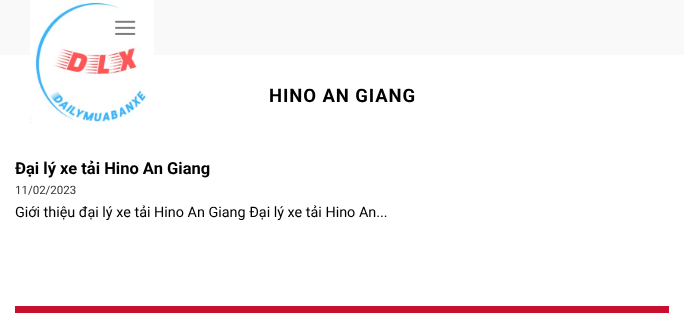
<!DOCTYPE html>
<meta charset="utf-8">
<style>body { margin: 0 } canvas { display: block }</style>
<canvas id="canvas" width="684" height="313"></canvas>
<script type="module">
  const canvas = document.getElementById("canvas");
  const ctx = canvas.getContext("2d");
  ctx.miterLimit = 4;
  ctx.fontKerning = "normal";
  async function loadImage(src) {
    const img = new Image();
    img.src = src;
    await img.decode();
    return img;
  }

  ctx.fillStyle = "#ffffff";
  ctx.fillRect(0, 0, 684, 313);
  ctx.fillStyle = "#f9f9f9";
  ctx.fillRect(0, 0, 684, 55);
  ctx.drawImage(await loadImage("img1.png"), 30, 0, 124, 124);
  ctx.drawImage(await loadImage("img2.png"), 115, 20, 21, 15);
  ctx.letterSpacing = "0.9px";
  ctx.font = "bold 18.5px Roboto";
  ctx.fillStyle = "#000000";
  ctx.fillText("HINO AN GIANG", 269, 102);
  ctx.letterSpacing = "0px";
  ctx.font = "bold 16.5px Roboto";
  ctx.fillText("Đại lý xe tải Hino An Giang", 15, 174);
  ctx.font = "11.5px Roboto";
  ctx.fillStyle = "#333333";
  ctx.fillText("11/02/2023", 15, 194);
  ctx.font = "14.4px Roboto";
  ctx.fillStyle = "#000000";
  ctx.fillText("Giới thiệu đại lý xe tải Hino An Giang Đại lý xe tải Hino An...", 15, 217);
  ctx.fillStyle = "#c8102e";
  ctx.fillRect(15, 306, 654, 7);
</script>
